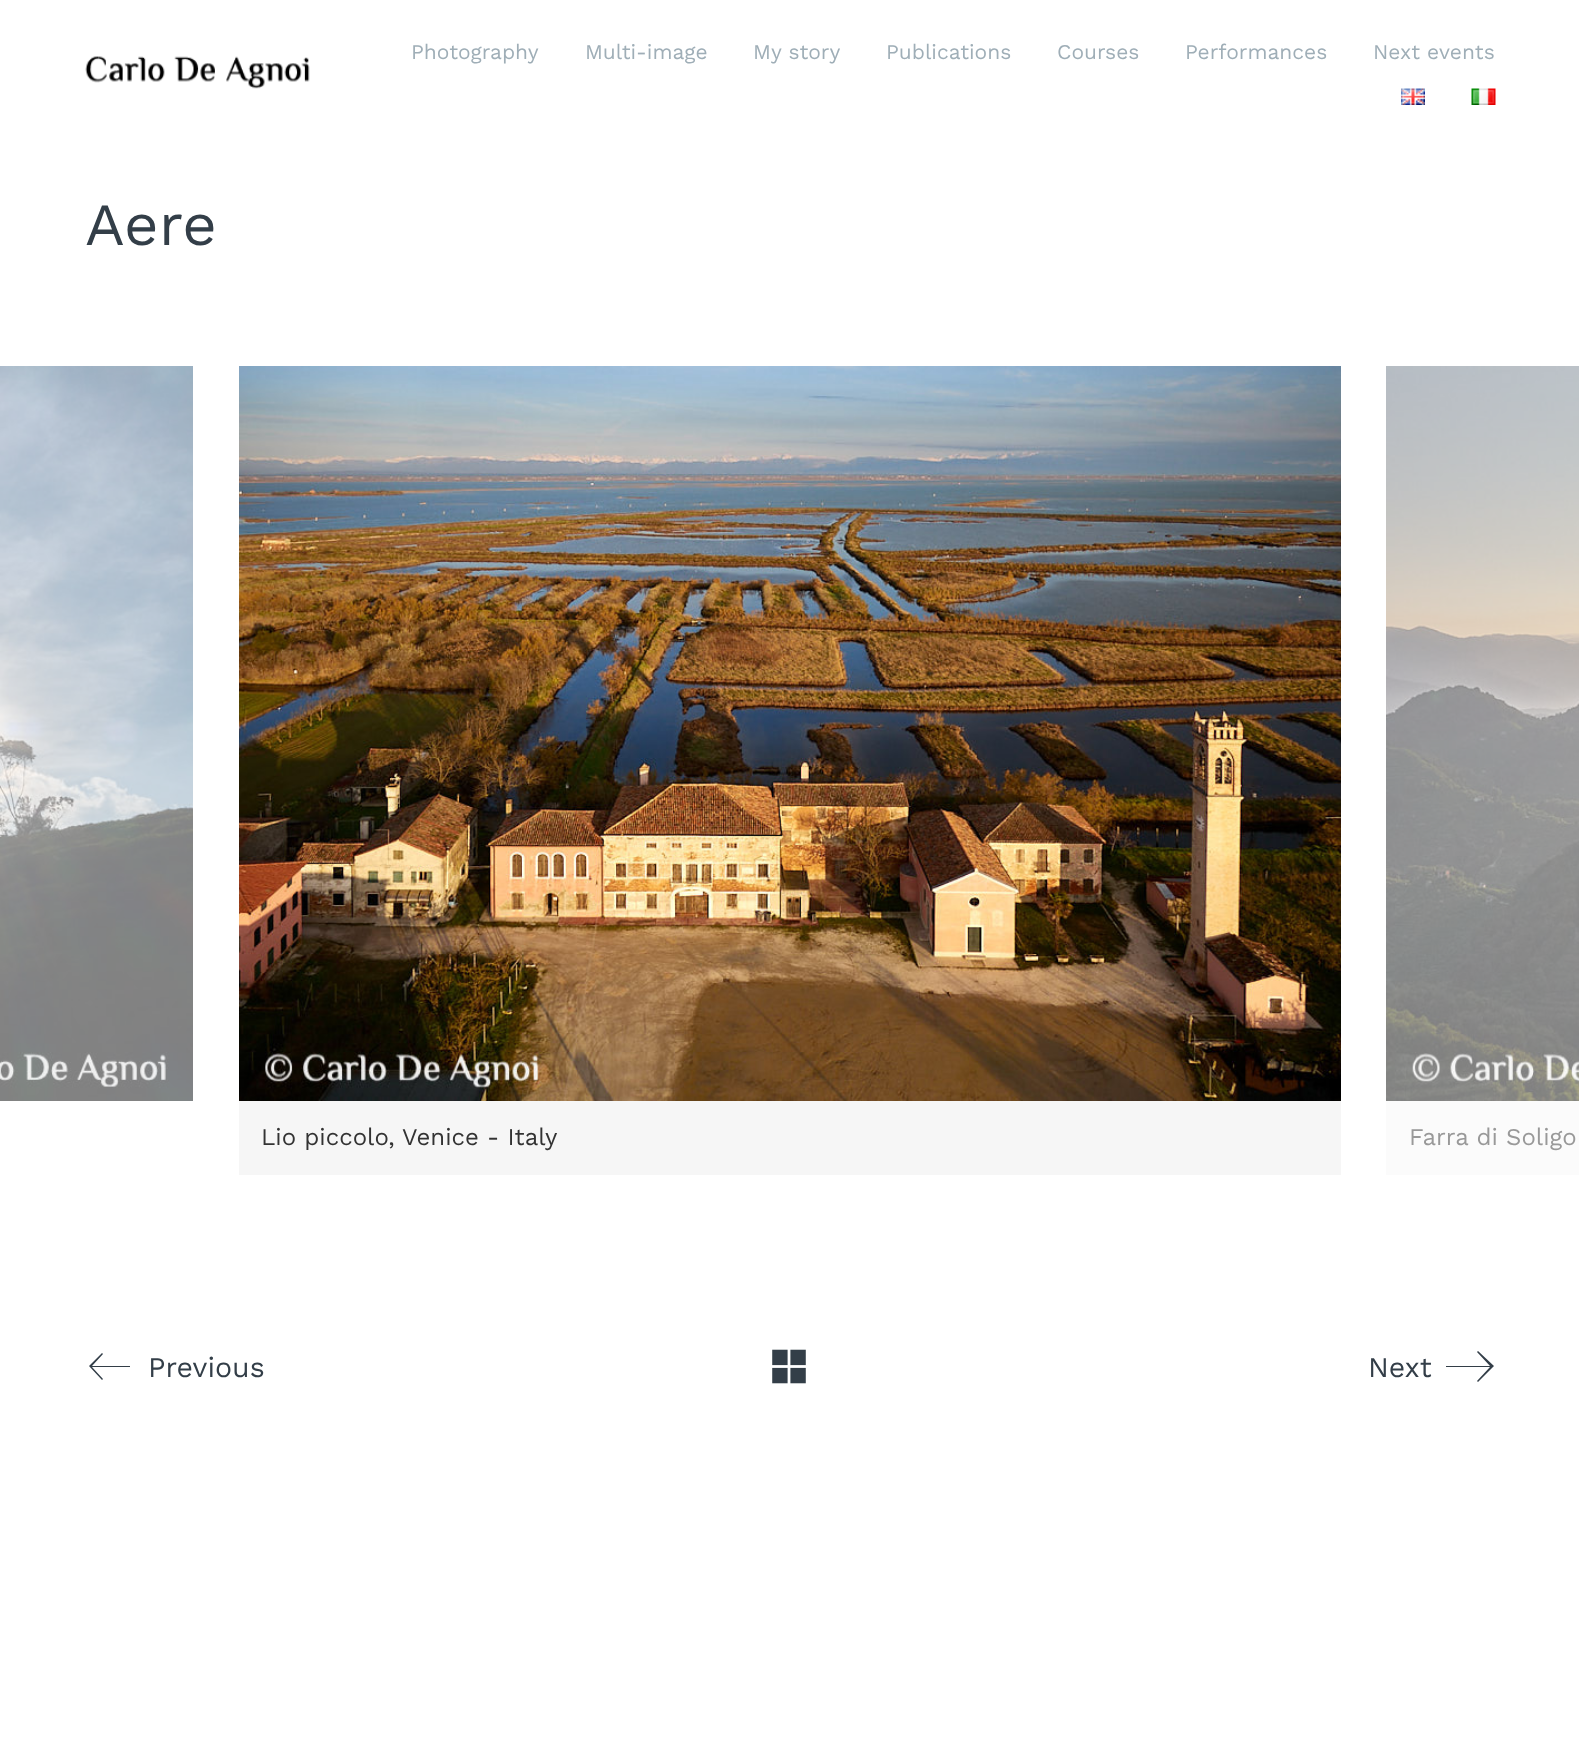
<!DOCTYPE html>
<meta charset="utf-8">
<style>body { margin: 0 } canvas { display: block }</style>
<canvas id="canvas" width="1579" height="1763"></canvas>
<script type="module">
  const canvas = document.getElementById("canvas");
  const ctx = canvas.getContext("2d");
  ctx.miterLimit = 4;
  ctx.fontKerning = "normal";
  async function loadImage(src) {
    const img = new Image();
    img.src = src;
    await img.decode();
    return img;
  }

  ctx.fillStyle = "#ffffff";
  ctx.fillRect(0, 0, 1579, 1763);
  ctx.font = "21px Work Sans";
  ctx.fillStyle = "#9faeb7";
  ctx.fillText("Photography", 411, 59);
  ctx.fillText("Multi-image", 585, 59);
  ctx.fillText("My story", 753, 59);
  ctx.fillText("Publications", 886, 59);
  ctx.fillText("Courses", 1057, 59);
  ctx.fillText("Performances", 1185, 59);
  ctx.fillText("Next events", 1373, 59);
  ctx.drawImage(await loadImage("img1.png"), 1401, 88, 24, 17);
  ctx.drawImage(await loadImage("img2.png"), 1471, 88, 25, 17);
  ctx.drawImage(await loadImage("img3.png"), 85, 56, 225, 33);
  ctx.font = "60px Work Sans";
  ctx.fillStyle = "#333e48";
  ctx.fillText("Aere", 85, 245);
  ctx.drawImage(await loadImage("img4.png"), 0, 366, 193, 735);
  ctx.drawImage(await loadImage("img5.png"), 239, 366, 1102, 735);
  ctx.fillStyle = "#f6f6f6";
  ctx.fillRect(239, 1101, 1102, 74);
  ctx.font = "24px Work Sans";
  ctx.fillStyle = "#333333";
  ctx.fillText("Lio piccolo, Venice - Italy", 261, 1145);
  ctx.drawImage(await loadImage("img6.png"), 1386, 366, 193, 735);
  ctx.fillStyle = "#fbfbfb";
  ctx.fillRect(1386, 1101, 193, 74);
  ctx.fillStyle = "#999999";
  ctx.fillText("Farra di Soligo", 1409, 1145);
  ctx.fillStyle = "#333e48";
  ctx.beginPath();
  ctx.moveTo(130, 1366);
  ctx.lineTo(92, 1366);
  ctx.lineTo(103, 1354);
  ctx.lineTo(102, 1353);
  ctx.lineTo(89, 1366);
  ctx.lineTo(102, 1380);
  ctx.lineTo(103, 1379);
  ctx.lineTo(92, 1367);
  ctx.lineTo(130, 1367);
  ctx.closePath();
  ctx.fill();
  ctx.font = "28.5px Work Sans";
  ctx.fillText("Previous", 148, 1377);
  ctx.drawImage(await loadImage("img7.png"), 772, 1349, 34, 35);
  ctx.fillText("Next", 1368, 1377);
  ctx.beginPath();
  ctx.moveTo(1478, 1351);
  ctx.lineTo(1477, 1352);
  ctx.lineTo(1490, 1366);
  ctx.lineTo(1446, 1366);
  ctx.lineTo(1446, 1367);
  ctx.lineTo(1490, 1367);
  ctx.lineTo(1477, 1381);
  ctx.lineTo(1478, 1382);
  ctx.lineTo(1494, 1366);
  ctx.closePath();
  ctx.fill();
</script>
